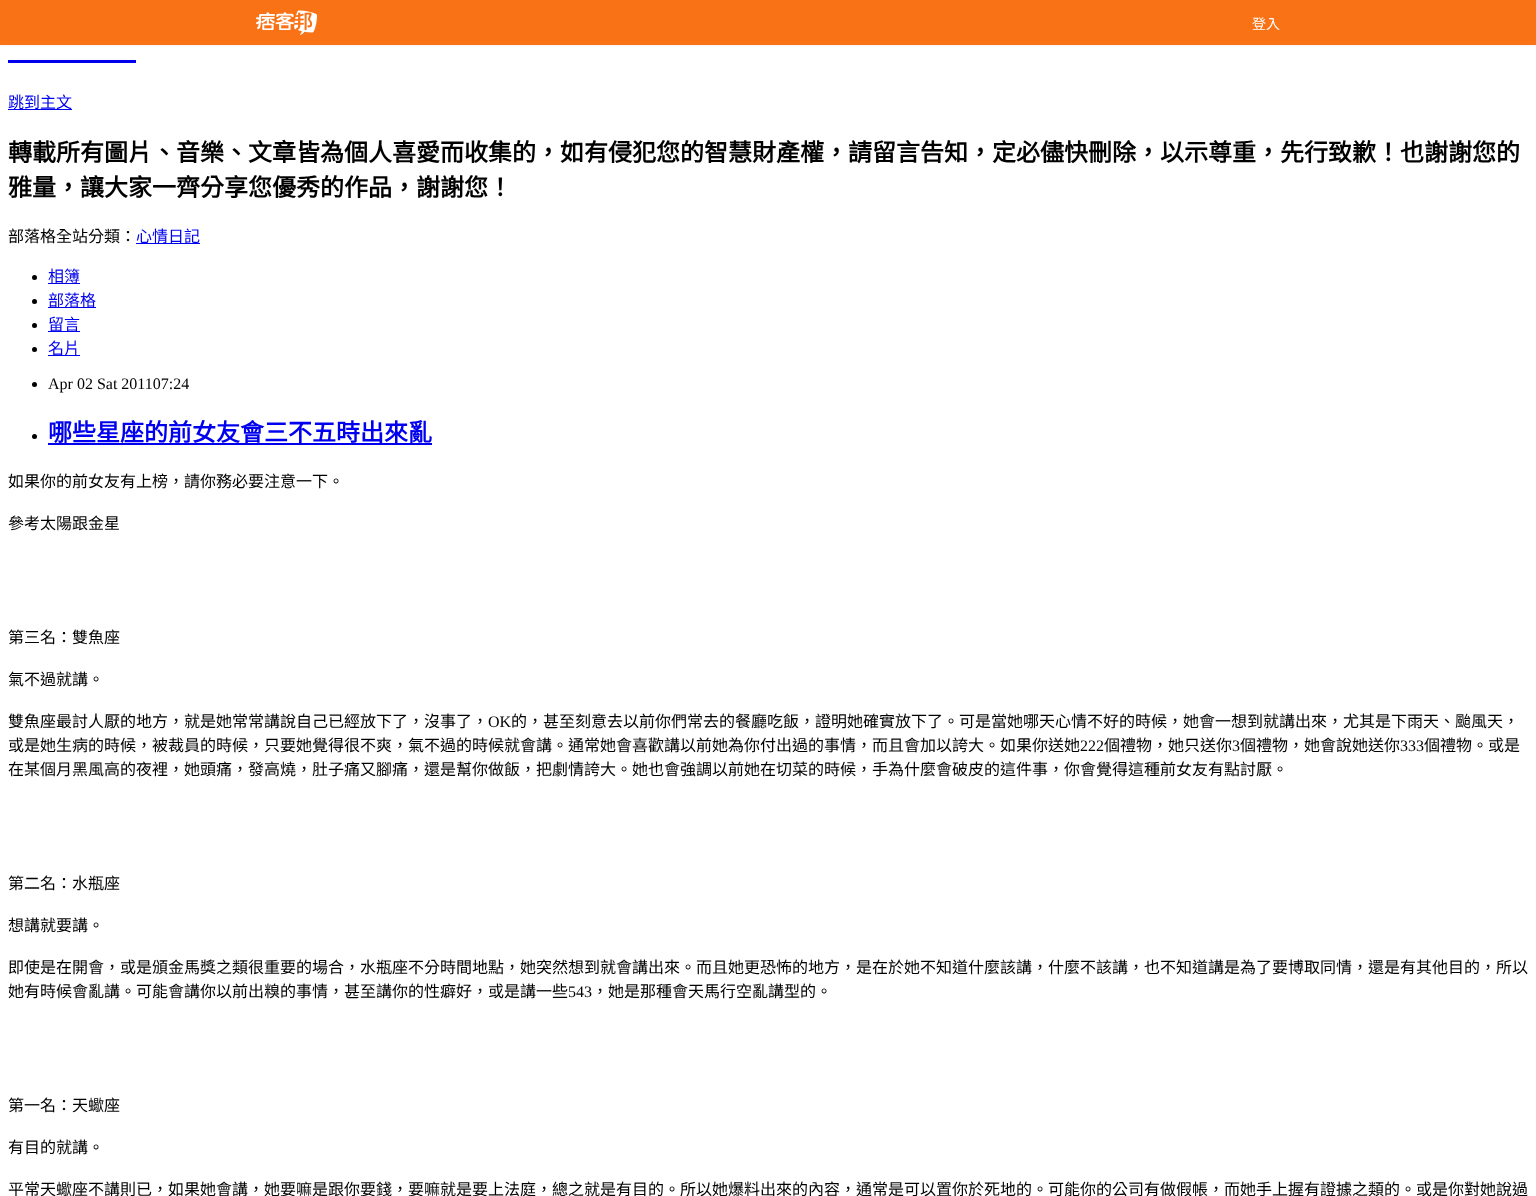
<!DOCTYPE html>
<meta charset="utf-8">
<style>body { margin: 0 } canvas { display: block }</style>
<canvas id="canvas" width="1536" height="1196"></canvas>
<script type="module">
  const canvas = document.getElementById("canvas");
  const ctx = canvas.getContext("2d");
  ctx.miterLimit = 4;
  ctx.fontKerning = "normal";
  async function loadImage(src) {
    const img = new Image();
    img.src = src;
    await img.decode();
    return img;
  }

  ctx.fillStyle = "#ffffff";
  ctx.fillRect(0, 0, 1536, 1196);
  ctx.fillStyle = "rgba(0, 0, 0, 0.05)";
  ctx.filter = "blur(1px)";
  ctx.beginPath();
  ctx.rect(0, 1, 1536, 45);
  ctx.fill();
  ctx.filter = "none";
  ctx.fillStyle = "#f97316";
  ctx.fillRect(0, 0, 1536, 45);
  ctx.drawImage(await loadImage("img1.png"), 256, 10, 61, 25);
  ctx.font = "14px Noto Sans CJK TC";
  ctx.fillStyle = "#ffffff";
  ctx.fillText("登入", 1252, 29);
  ctx.fillStyle = "#0000ee";
  ctx.fillRect(8, 60, 128, 3);
  ctx.fillRect(8, 109, 64, 1);
  ctx.font = "16px Noto Sans CJK TC";
  ctx.fillText("跳到主文", 8, 108);
  ctx.font = "bold 24px Noto Sans CJK TC";
  ctx.fillStyle = "#000000";
  ctx.fillText("轉載所有圖片、音樂、文章皆為個人喜愛而收集的，如有侵犯您的智慧財產權，請留言告知，定必儘快刪除，以示尊重，先行致歉！也謝謝您的", 8, 161);
  ctx.fillText("雅量，讓大家一齊分享您優秀的作品，謝謝您！", 8, 196);
  ctx.font = "16px Noto Sans CJK TC";
  ctx.fillText("部落格全站分類：", 8, 242);
  ctx.fillStyle = "#0000ee";
  ctx.fillRect(136, 243, 64, 1);
  ctx.fillText("心情日記", 136, 242);
  ctx.fillStyle = "#000000";
  ctx.beginPath();
  ctx.arc(34.5, 277.5, 2.5, 0, Math.PI * 2);
  ctx.fill();
  ctx.fillStyle = "#0000ee";
  ctx.fillRect(48, 283, 32, 1);
  ctx.fillText("相簿", 48, 282);
  ctx.fillStyle = "#000000";
  ctx.beginPath();
  ctx.arc(34.5, 301.5, 2.5, 0, Math.PI * 2);
  ctx.fill();
  ctx.fillStyle = "#0000ee";
  ctx.fillRect(48, 307, 48, 1);
  ctx.fillText("部落格", 48, 306);
  ctx.fillStyle = "#000000";
  ctx.beginPath();
  ctx.arc(34.5, 325.5, 2.5, 0, Math.PI * 2);
  ctx.fill();
  ctx.fillStyle = "#0000ee";
  ctx.fillRect(48, 331, 32, 1);
  ctx.fillText("留言", 48, 330);
  ctx.fillStyle = "#000000";
  ctx.beginPath();
  ctx.arc(34.5, 349.5, 2.5, 0, Math.PI * 2);
  ctx.fill();
  ctx.fillStyle = "#0000ee";
  ctx.fillRect(48, 355, 32, 1);
  ctx.fillText("名片", 48, 354);
  ctx.fillStyle = "#000000";
  ctx.beginPath();
  ctx.arc(34.5, 384.5, 2.5, 0, Math.PI * 2);
  ctx.fill();
  ctx.font = "16px Liberation Serif";
  ctx.fillText("Apr 02 Sat 201107:24", 48, 389);
  ctx.beginPath();
  ctx.arc(34.5, 436.5, 2.5, 0, Math.PI * 2);
  ctx.fill();
  ctx.font = "bold 24px Noto Sans CJK TC";
  ctx.fillStyle = "#0000ee";
  ctx.fillText("哪些星座的前女友會三不五時出來亂", 48, 441);
  ctx.fillRect(48, 443, 384, 2);
  ctx.font = "16px Noto Sans CJK TC";
  ctx.fillStyle = "#000000";
  ctx.fillText("如果你的前女友有上榜，請你務必要注意一下。", 8, 487);
  ctx.fillText("參考太陽跟金星", 8, 529);
  ctx.fillText("第三名：雙魚座", 8, 643);
  ctx.fillText("氣不過就講。", 8, 685);
  ctx.fillText("雙魚座最討人厭的地方，就是她常常講說自己已經放下了，沒事了，", 8, 727);
  ctx.font = "16px Liberation Serif";
  ctx.fillText("OK", 488, 727);
  ctx.font = "16px Noto Sans CJK TC";
  ctx.fillText("的，甚至刻意去以前你們常去的餐廳吃飯，證明她確實放下了。可是當她哪天心情不好的時候，她會一想到就講出來，尤其是下雨天、颱風天，", 511, 727);
  ctx.fillText("或是她生病的時候，被裁員的時候，只要她覺得很不爽，氣不過的時候就會講。通常她會喜歡講以前她為你付出過的事情，而且會加以誇大。如果你送她", 8, 751);
  ctx.font = "16px Liberation Serif";
  ctx.fillText("222", 1080, 751);
  ctx.font = "16px Noto Sans CJK TC";
  ctx.fillText("個禮物，她只送你", 1104, 751);
  ctx.font = "16px Liberation Serif";
  ctx.fillText("3", 1232, 751);
  ctx.font = "16px Noto Sans CJK TC";
  ctx.fillText("個禮物，她會說她送你", 1240, 751);
  ctx.font = "16px Liberation Serif";
  ctx.fillText("333", 1400, 751);
  ctx.font = "16px Noto Sans CJK TC";
  ctx.fillText("個禮物。或是", 1424, 751);
  ctx.fillText("在某個月黑風高的夜裡，她頭痛，發高燒，肚子痛又腳痛，還是幫你做飯，把劇情誇大。她也會強調以前她在切菜的時候，手為什麼會破皮的這件事，你會覺得這種前女友有點討厭。", 8, 775);
  ctx.fillText("第二名：水瓶座", 8, 889);
  ctx.fillText("想講就要講。", 8, 931);
  ctx.fillText("即使是在開會，或是頒金馬獎之類很重要的場合，水瓶座不分時間地點，她突然想到就會講出來。而且她更恐怖的地方，是在於她不知道什麼該講，什麼不該講，也不知道講是為了要博取同情，還是有其他目的，所以", 8, 973);
  ctx.fillText("她有時候會亂講。可能會講你以前出糗的事情，甚至講你的性癖好，或是講一些", 8, 997);
  ctx.font = "16px Liberation Serif";
  ctx.fillText("543", 568, 997);
  ctx.font = "16px Noto Sans CJK TC";
  ctx.fillText("，她是那種會天馬行空亂講型的。", 592, 997);
  ctx.fillText("第一名：天蠍座", 8, 1111);
  ctx.fillText("有目的就講。", 8, 1153);
  ctx.fillText("平常天蠍座不講則已，如果她會講，她要嘛是跟你要錢，要嘛就是要上法庭，總之就是有目的。所以她爆料出來的內容，通常是可以置你於死地的。可能你的公司有做假帳，而她手上握有證據之類的。或是你對她說過", 8, 1195);
</script>
